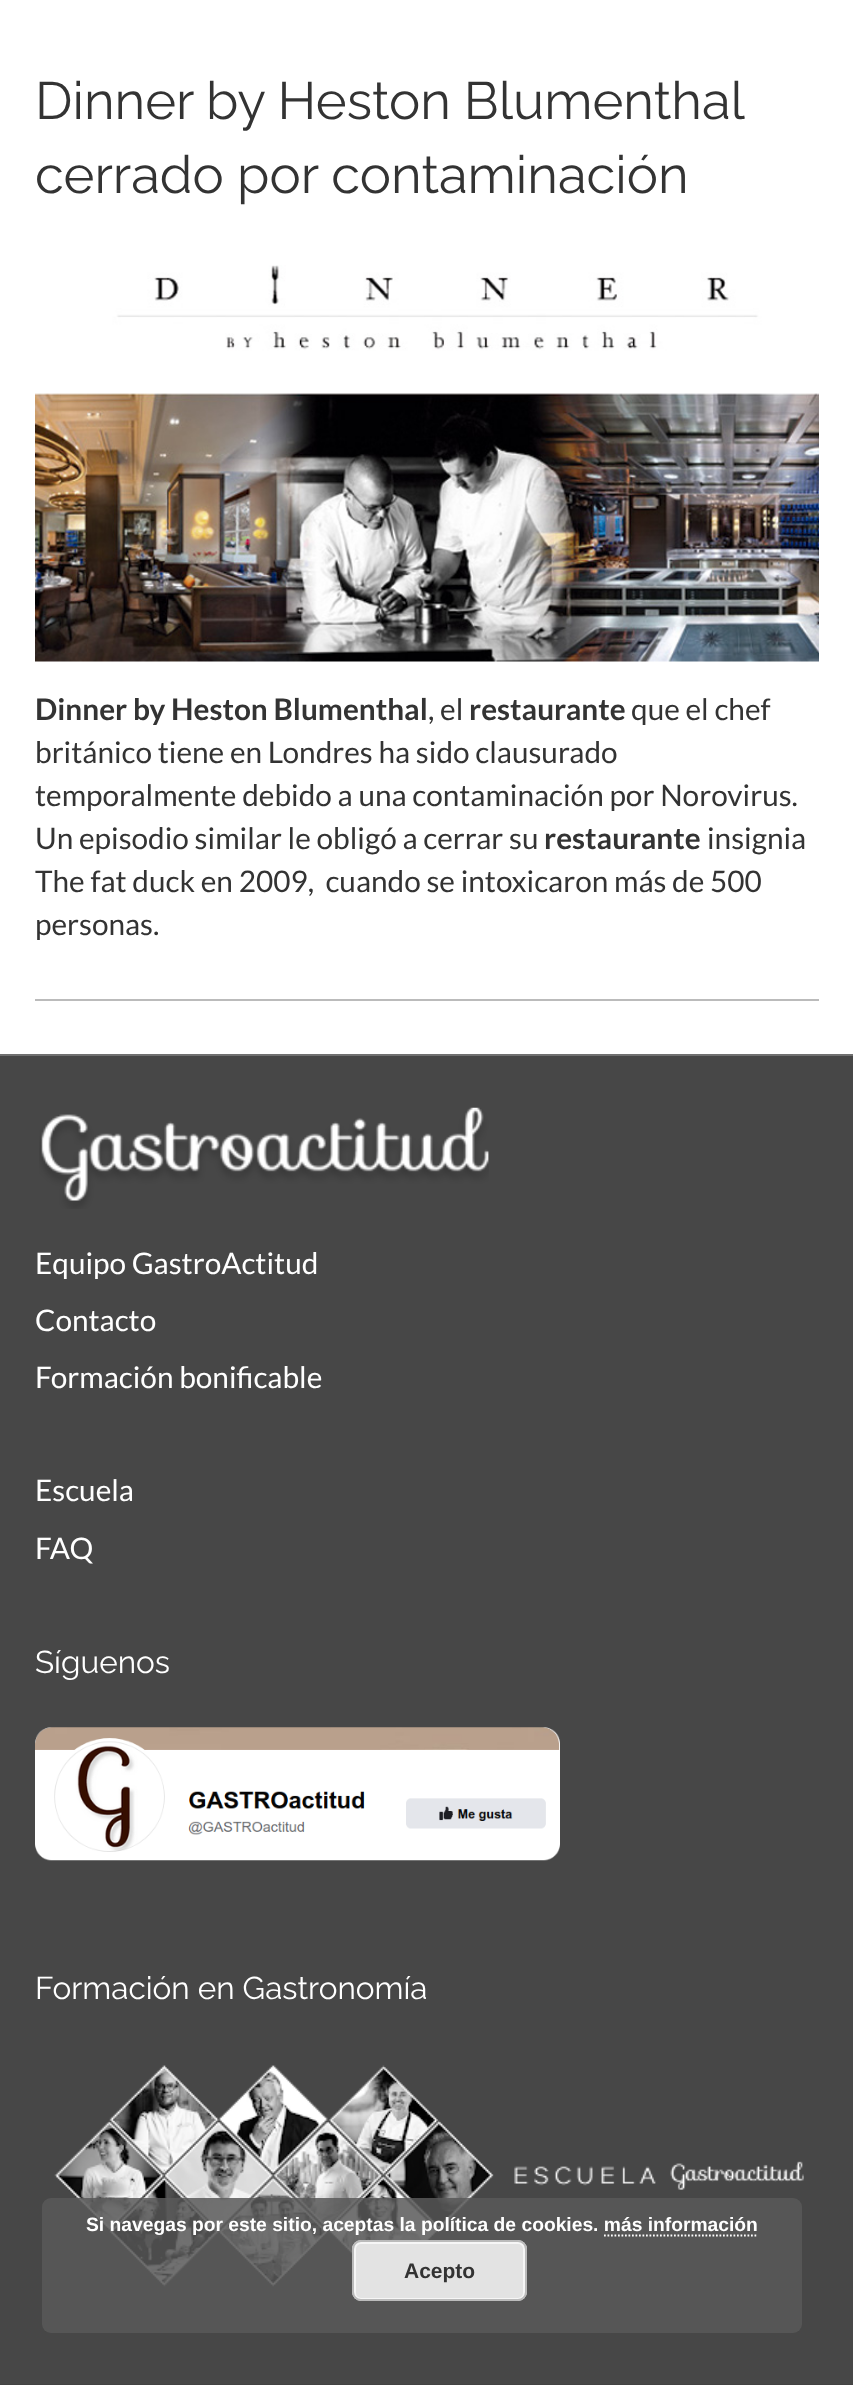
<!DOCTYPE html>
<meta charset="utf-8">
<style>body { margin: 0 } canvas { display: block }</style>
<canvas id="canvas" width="853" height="2385"></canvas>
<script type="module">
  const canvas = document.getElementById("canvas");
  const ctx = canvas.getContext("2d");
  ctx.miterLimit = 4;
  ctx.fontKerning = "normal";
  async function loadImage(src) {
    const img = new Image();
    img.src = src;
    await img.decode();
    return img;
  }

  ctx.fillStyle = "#ffffff";
  ctx.fillRect(0, 0, 853, 2385);
  ctx.fillStyle = "#bbbbbb";
  ctx.fillRect(35, 999, 784, 2);
  ctx.wordSpacing = "-0.5px";
  ctx.font = "100 52.5px Raleway";
  ctx.fillStyle = "#333333";
  ctx.fillText("Dinner by Heston Blumenthal", 35, 119);
  ctx.wordSpacing = "0px";
  ctx.fillText("cerrado por contaminación", 35, 193);
  ctx.drawImage(await loadImage("img1.png"), 35, 265, 784, 397);
  ctx.font = "bold 29.75px Lato";
  ctx.fillText("Dinner by Heston Blumenthal", 35, 720);
  ctx.font = "29.75px Lato";
  ctx.fillText(", el", 428, 720);
  ctx.font = "bold 29.75px Lato";
  ctx.fillText("restaurante", 469, 720);
  ctx.font = "29.75px Lato";
  ctx.fillText("que el chef", 631, 720);
  ctx.fillText("británico tiene en Londres ha sido clausurado", 35, 763);
  ctx.fillText("temporalmente debido a una contaminación por Norovirus.", 35, 806);
  ctx.fillText("Un episodio similar le obligó a cerrar su", 35, 849);
  ctx.font = "bold 29.75px Lato";
  ctx.fillText("restaurante", 544, 849);
  ctx.font = "29.75px Lato";
  ctx.fillText("insignia", 707, 849);
  ctx.fillText("The fat duck en 2009,  cuando se intoxicaron más de 500", 35, 892);
  ctx.fillText("personas.", 35, 935);
  ctx.fillStyle = "#474747";
  ctx.fillRect(0, 1056, 853, 1328);
  ctx.fillStyle = "#707070";
  ctx.fillRect(0, 1054, 853, 2);
  ctx.drawImage(await loadImage("img2.png"), 39, 1107, 450, 102);
  ctx.fillStyle = "#ffffff";
  ctx.fillText("Equipo GastroActitud", 35, 1274);
  ctx.fillText("Contacto", 35, 1331);
  ctx.fillText("Formación bonificable", 35, 1388);
  ctx.fillText("Escuela", 35, 1501);
  ctx.fillText("FAQ", 35, 1559);
  ctx.font = "100 31.5px Raleway";
  ctx.fillText("Síguenos", 35, 1673);
  ctx.drawImage(await loadImage("img3.png"), 35, 1727, 525, 134);
  ctx.fillText("Formación en Gastronomía", 35, 1999);
  ctx.drawImage(await loadImage("img4.png"), 54, 2065, 750, 222);
  ctx.fillStyle = "#434343";
  ctx.fillRect(0, 2384, 853, 1);
  ctx.fillStyle = "rgba(89, 89, 89, 0.85)";
  ctx.beginPath();
  ctx.roundRect(42, 2198, 760, 135, 9);
  ctx.fill();
  ctx.font = "bold 19.25px Liberation Sans";
  ctx.fillStyle = "#ffffff";
  ctx.fillText("Si navegas por este sitio, aceptas la política de cookies. más información", 86, 2231);
  ctx.beginPath();
  ctx.moveTo(604, 2235.5);
  ctx.lineTo(758, 2235.5);
  ctx.strokeStyle = "#ffffff";
  ctx.lineWidth = 1.8;
  ctx.setLineDash([1.75, 1.75]);
  ctx.stroke();
  ctx.fillStyle = "#e3e3e3";
  ctx.beginPath();
  ctx.roundRect(352, 2240, 175, 61, 9);
  ctx.fill();
  ctx.beginPath();
  ctx.roundRect(355, 2243, 169, 56, 6);
  ctx.strokeStyle = "#f6f6f6";
  ctx.lineWidth = 2;
  ctx.setLineDash([]);
  ctx.stroke();
  ctx.beginPath();
  ctx.roundRect(353, 2241, 173, 59, 8);
  ctx.strokeStyle = "#bbbbbb";
  ctx.stroke();
  ctx.font = "bold 21px Liberation Sans";
  ctx.fillStyle = "#333333";
  ctx.fillText("Acepto", 404, 2278);
</script>
